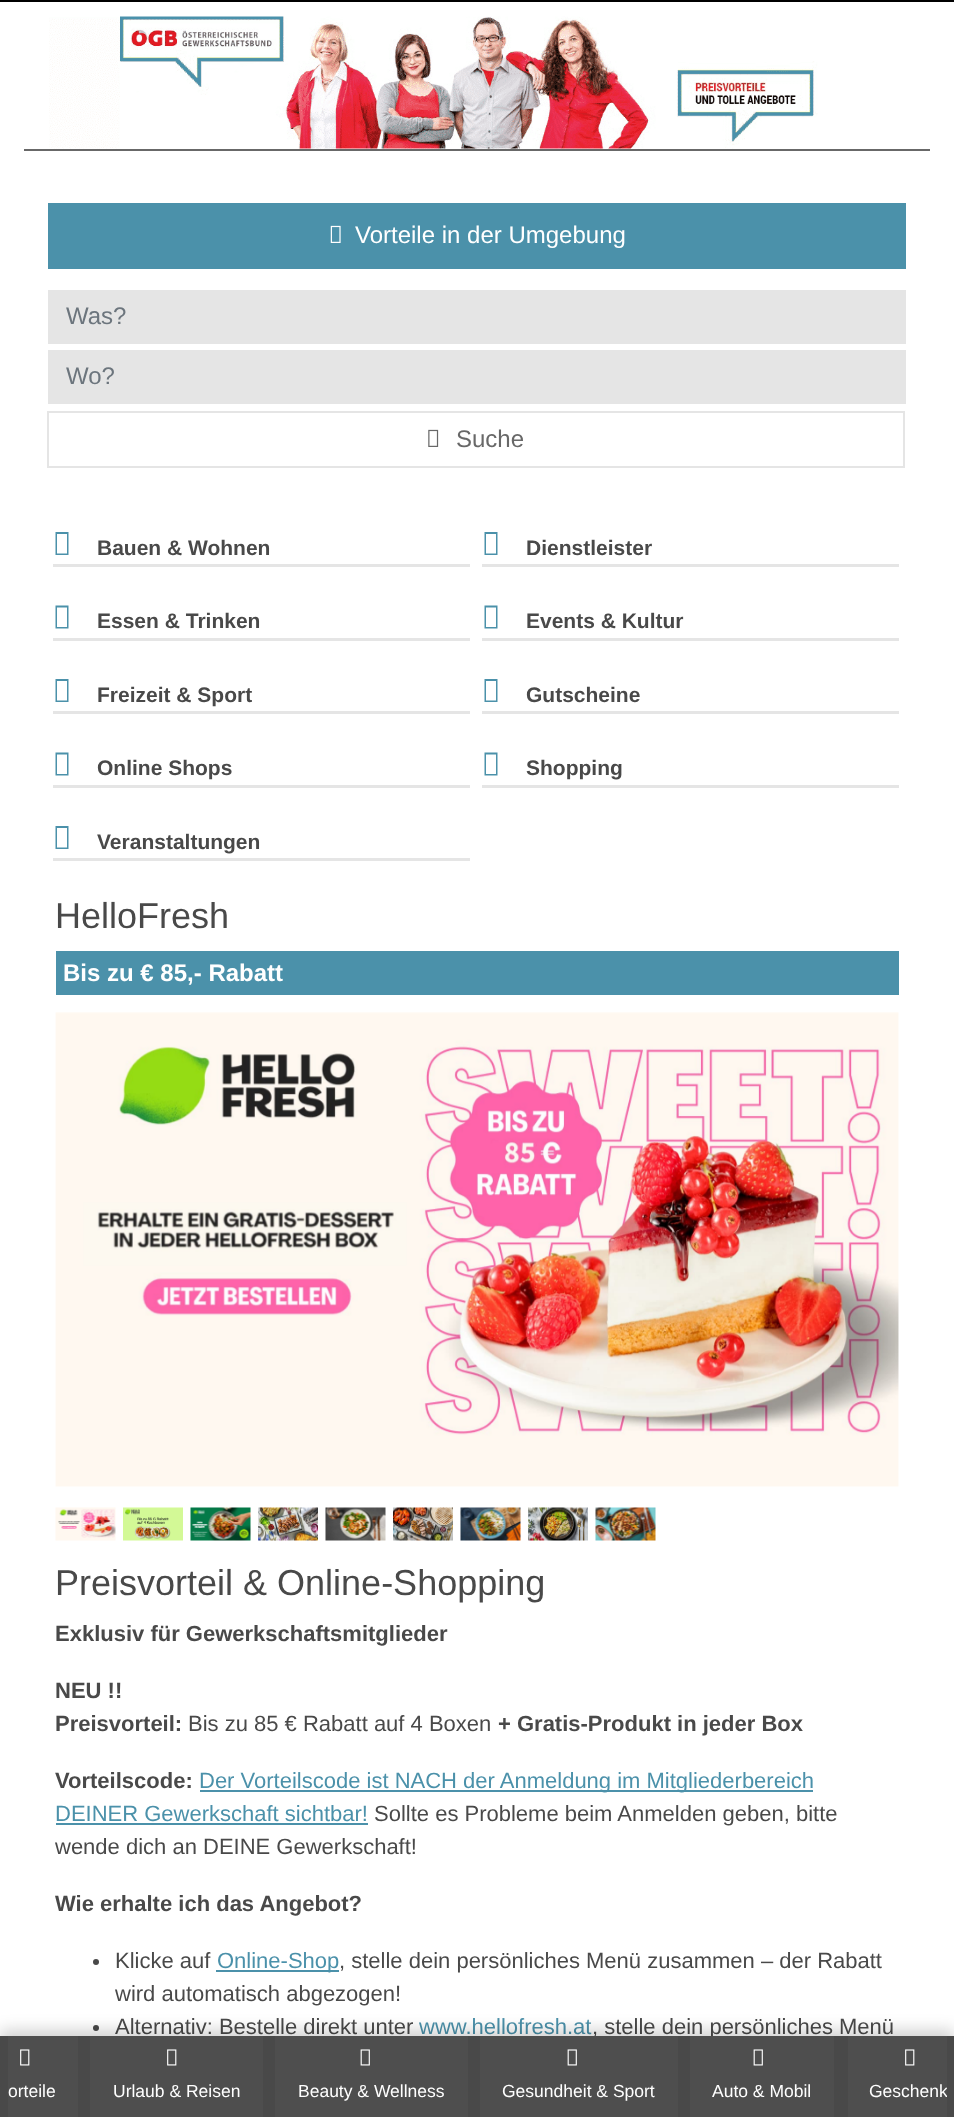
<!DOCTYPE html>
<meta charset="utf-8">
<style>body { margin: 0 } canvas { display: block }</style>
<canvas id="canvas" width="954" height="2117"></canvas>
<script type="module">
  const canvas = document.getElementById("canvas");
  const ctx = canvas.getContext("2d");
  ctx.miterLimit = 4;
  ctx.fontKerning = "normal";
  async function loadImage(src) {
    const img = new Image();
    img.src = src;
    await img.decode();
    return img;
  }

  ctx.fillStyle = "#ffffff";
  ctx.fillRect(0, 0, 954, 2117);
  ctx.fillStyle = "#000000";
  ctx.fillRect(0, 0, 954, 2);
  ctx.fillStyle = "#4b91aa";
  ctx.fillRect(48, 203, 858, 66);
  ctx.drawImage(await loadImage("img1.png"), 330, 225, 11, 18);
  ctx.font = "24px Liberation Sans";
  ctx.fillStyle = "#ffffff";
  ctx.fillText("Vorteile in der Umgebung", 355, 243);
  ctx.fillStyle = "#e5e5e5";
  ctx.fillRect(48, 290, 858, 54);
  ctx.fillStyle = "#6c757d";
  ctx.fillText("Was?", 66, 324);
  ctx.fillStyle = "#e5e5e5";
  ctx.fillRect(48, 350, 858, 54);
  ctx.fillStyle = "#6c757d";
  ctx.fillText("Wo?", 66, 384);
  ctx.strokeStyle = "#e5e5e5";
  ctx.lineWidth = 2;
  ctx.strokeRect(48, 412, 856, 55);
  ctx.drawImage(await loadImage("img2.png"), 428, 429, 11, 18);
  ctx.fillStyle = "#686868";
  ctx.fillText("Suche", 456, 447);
  ctx.fillStyle = "#4b91aa";
  ctx.beginPath();
  ctx.moveTo(55.5, 555);
  ctx.lineTo(55.5, 532);
  ctx.lineTo(68.5, 532);
  ctx.lineTo(68.5, 555);
  ctx.closePath();
  ctx.moveTo(57, 553.5);
  ctx.lineTo(67, 553.5);
  ctx.lineTo(67, 534);
  ctx.lineTo(57, 534);
  ctx.closePath();
  ctx.fill();
  ctx.font = "bold 21px Liberation Sans";
  ctx.fillStyle = "#494949";
  ctx.fillText("Bauen & Wohnen", 97, 555);
  ctx.fillStyle = "#e5e5e5";
  ctx.fillRect(53, 564, 417, 3);
  ctx.fillStyle = "#4b91aa";
  ctx.beginPath();
  ctx.moveTo(484.5, 555);
  ctx.lineTo(484.5, 532);
  ctx.lineTo(497.5, 532);
  ctx.lineTo(497.5, 555);
  ctx.closePath();
  ctx.moveTo(486, 553.5);
  ctx.lineTo(496, 553.5);
  ctx.lineTo(496, 534);
  ctx.lineTo(486, 534);
  ctx.closePath();
  ctx.fill();
  ctx.fillStyle = "#494949";
  ctx.fillText("Dienstleister", 526, 555);
  ctx.fillStyle = "#e5e5e5";
  ctx.fillRect(482, 564, 417, 3);
  ctx.fillStyle = "#4b91aa";
  ctx.beginPath();
  ctx.moveTo(55.5, 628.5);
  ctx.lineTo(55.5, 605.5);
  ctx.lineTo(68.5, 605.5);
  ctx.lineTo(68.5, 628.5);
  ctx.closePath();
  ctx.moveTo(57, 627);
  ctx.lineTo(67, 627);
  ctx.lineTo(67, 607.5);
  ctx.lineTo(57, 607.5);
  ctx.closePath();
  ctx.fill();
  ctx.fillStyle = "#494949";
  ctx.fillText("Essen & Trinken", 97, 628);
  ctx.fillStyle = "#e5e5e5";
  ctx.fillRect(53, 638, 417, 3);
  ctx.fillStyle = "#4b91aa";
  ctx.beginPath();
  ctx.moveTo(484.5, 628.5);
  ctx.lineTo(484.5, 605.5);
  ctx.lineTo(497.5, 605.5);
  ctx.lineTo(497.5, 628.5);
  ctx.closePath();
  ctx.moveTo(486, 627);
  ctx.lineTo(496, 627);
  ctx.lineTo(496, 607.5);
  ctx.lineTo(486, 607.5);
  ctx.closePath();
  ctx.fill();
  ctx.fillStyle = "#494949";
  ctx.fillText("Events & Kultur", 526, 628);
  ctx.fillStyle = "#e5e5e5";
  ctx.fillRect(482, 638, 417, 3);
  ctx.fillStyle = "#4b91aa";
  ctx.beginPath();
  ctx.moveTo(55.5, 702);
  ctx.lineTo(55.5, 679);
  ctx.lineTo(68.5, 679);
  ctx.lineTo(68.5, 702);
  ctx.closePath();
  ctx.moveTo(57, 700.5);
  ctx.lineTo(67, 700.5);
  ctx.lineTo(67, 681);
  ctx.lineTo(57, 681);
  ctx.closePath();
  ctx.fill();
  ctx.fillStyle = "#494949";
  ctx.fillText("Freizeit & Sport", 97, 702);
  ctx.fillStyle = "#e5e5e5";
  ctx.fillRect(53, 711, 417, 3);
  ctx.fillStyle = "#4b91aa";
  ctx.beginPath();
  ctx.moveTo(484.5, 702);
  ctx.lineTo(484.5, 679);
  ctx.lineTo(497.5, 679);
  ctx.lineTo(497.5, 702);
  ctx.closePath();
  ctx.moveTo(486, 700.5);
  ctx.lineTo(496, 700.5);
  ctx.lineTo(496, 681);
  ctx.lineTo(486, 681);
  ctx.closePath();
  ctx.fill();
  ctx.fillStyle = "#494949";
  ctx.fillText("Gutscheine", 526, 702);
  ctx.fillStyle = "#e5e5e5";
  ctx.fillRect(482, 711, 417, 3);
  ctx.fillStyle = "#4b91aa";
  ctx.beginPath();
  ctx.moveTo(55.5, 775.5);
  ctx.lineTo(55.5, 752.5);
  ctx.lineTo(68.5, 752.5);
  ctx.lineTo(68.5, 775.5);
  ctx.closePath();
  ctx.moveTo(57, 774);
  ctx.lineTo(67, 774);
  ctx.lineTo(67, 754.5);
  ctx.lineTo(57, 754.5);
  ctx.closePath();
  ctx.fill();
  ctx.fillStyle = "#494949";
  ctx.fillText("Online Shops", 97, 775);
  ctx.fillStyle = "#e5e5e5";
  ctx.fillRect(53, 785, 417, 3);
  ctx.fillStyle = "#4b91aa";
  ctx.beginPath();
  ctx.moveTo(484.5, 775.5);
  ctx.lineTo(484.5, 752.5);
  ctx.lineTo(497.5, 752.5);
  ctx.lineTo(497.5, 775.5);
  ctx.closePath();
  ctx.moveTo(486, 774);
  ctx.lineTo(496, 774);
  ctx.lineTo(496, 754.5);
  ctx.lineTo(486, 754.5);
  ctx.closePath();
  ctx.fill();
  ctx.fillStyle = "#494949";
  ctx.fillText("Shopping", 526, 775);
  ctx.fillStyle = "#e5e5e5";
  ctx.fillRect(482, 785, 417, 3);
  ctx.fillStyle = "#4b91aa";
  ctx.beginPath();
  ctx.moveTo(55.5, 849);
  ctx.lineTo(55.5, 826);
  ctx.lineTo(68.5, 826);
  ctx.lineTo(68.5, 849);
  ctx.closePath();
  ctx.moveTo(57, 847.5);
  ctx.lineTo(67, 847.5);
  ctx.lineTo(67, 828);
  ctx.lineTo(57, 828);
  ctx.closePath();
  ctx.fill();
  ctx.fillStyle = "#494949";
  ctx.fillText("Veranstaltungen", 97, 849);
  ctx.fillStyle = "#e5e5e5";
  ctx.fillRect(53, 858, 417, 3);
  ctx.font = "36px Liberation Sans";
  ctx.fillStyle = "#494949";
  ctx.fillText("HelloFresh", 55, 928);
  ctx.fillStyle = "#4b91aa";
  ctx.fillRect(56, 951, 843, 44);
  ctx.font = "bold 24px Liberation Sans";
  ctx.fillStyle = "#ffffff";
  ctx.fillText("Bis zu € 85,- Rabatt", 63, 981);
  ctx.drawImage(await loadImage("img3.png"), 55, 1012, 844, 475);
  ctx.drawImage(await loadImage("img4.png"), 55, 1507, 61, 34);
  ctx.drawImage(await loadImage("img5.png"), 123, 1507, 60, 34);
  ctx.drawImage(await loadImage("img6.png"), 190, 1507, 61, 34);
  ctx.drawImage(await loadImage("img7.png"), 258, 1507, 60, 34);
  ctx.drawImage(await loadImage("img8.png"), 325, 1507, 61, 34);
  ctx.drawImage(await loadImage("img9.png"), 393, 1507, 60, 34);
  ctx.drawImage(await loadImage("img10.png"), 460, 1507, 61, 34);
  ctx.drawImage(await loadImage("img11.png"), 528, 1507, 60, 34);
  ctx.drawImage(await loadImage("img12.png"), 595, 1507, 61, 34);
  ctx.font = "36px Liberation Sans";
  ctx.fillStyle = "#494949";
  ctx.fillText("Preisvorteil & Online-Shopping", 55, 1595);
  ctx.font = "bold 22px Liberation Sans";
  ctx.fillText("Exklusiv für Gewerkschaftsmitglieder", 55, 1641);
  ctx.fillText("NEU !!", 55, 1698);
  ctx.fillText("Preisvorteil:", 55, 1731);
  ctx.font = "22px Liberation Sans";
  ctx.fillText("Bis zu 85 € Rabatt auf 4 Boxen", 188, 1731);
  ctx.font = "bold 22px Liberation Sans";
  ctx.fillText("+ Gratis-Produkt in jeder Box", 498, 1731);
  ctx.fillText("Vorteilscode:", 55, 1788);
  ctx.fillStyle = "#4b91aa";
  ctx.fillRect(200, 1790, 613, 2);
  ctx.font = "22px Liberation Sans";
  ctx.fillText("Der Vorteilscode ist NACH der Anmeldung im Mitgliederbereich", 199, 1788);
  ctx.fillText("DEINER Gewerkschaft sichtbar!", 55, 1821);
  ctx.fillRect(56, 1823, 312, 2);
  ctx.fillStyle = "#494949";
  ctx.fillText("Sollte es Probleme beim Anmelden geben, bitte", 374, 1821);
  ctx.fillText("wende dich an DEINE Gewerkschaft!", 55, 1854);
  ctx.font = "bold 22px Liberation Sans";
  ctx.fillText("Wie erhalte ich das Angebot?", 55, 1911);
  ctx.beginPath();
  ctx.arc(96, 1962, 3, 0, Math.PI * 2);
  ctx.fill();
  ctx.font = "22px Liberation Sans";
  ctx.fillText("Klicke auf", 115, 1968);
  ctx.fillStyle = "#4b91aa";
  ctx.fillRect(216, 1970, 123, 2);
  ctx.fillText("Online-Shop", 217, 1968);
  ctx.fillStyle = "#494949";
  ctx.fillText(", stelle dein persönliches Menü zusammen – der Rabatt", 339, 1968);
  ctx.fillText("wird automatisch abgezogen!", 115, 2001);
  ctx.beginPath();
  ctx.arc(96, 2028, 3, 0, Math.PI * 2);
  ctx.fill();
  ctx.fillText("Alternativ: Bestelle direkt unter", 115, 2034);
  ctx.fillStyle = "#4b91aa";
  ctx.fillText("www.hellofresh.at", 419, 2034);
  ctx.fillStyle = "#494949";
  ctx.fillText(", stelle dein persönliches Menü", 592, 2034);
  ctx.drawImage(await loadImage("img13.png"), 49, 16, 769, 133);
  ctx.fillStyle = "#686868";
  ctx.fillRect(24, 149, 906, 2);
  ctx.fillStyle = "rgba(0, 0, 0, 0.18)";
  ctx.filter = "blur(7.5px)";
  ctx.beginPath();
  ctx.rect(0, 2030, 954, 82);
  ctx.fill();
  ctx.filter = "none";
  ctx.fillStyle = "#494949";
  ctx.fillRect(0, 2036, 954, 81);
  ctx.fillStyle = "#4e4e4e";
  ctx.fillRect(8, 2036, 70, 81);
  ctx.drawImage(await loadImage("img14.png"), 20, 2049, 10, 17);
  ctx.font = "17.5px Liberation Sans";
  ctx.fillStyle = "#ffffff";
  ctx.fillText("orteile", 8, 2097);
  ctx.fillStyle = "#4e4e4e";
  ctx.fillRect(90, 2036, 173, 81);
  ctx.drawImage(await loadImage("img14.png"), 167, 2049, 10, 17);
  ctx.fillStyle = "#ffffff";
  ctx.fillText("Urlaub & Reisen", 113, 2097);
  ctx.fillStyle = "#4e4e4e";
  ctx.fillRect(275, 2036, 193, 81);
  ctx.drawImage(await loadImage("img15.png"), 360, 2049, 10, 17);
  ctx.fillStyle = "#ffffff";
  ctx.fillText("Beauty & Wellness", 298, 2097);
  ctx.fillStyle = "#4e4e4e";
  ctx.fillRect(480, 2036, 198, 81);
  ctx.drawImage(await loadImage("img15.png"), 567, 2049, 10, 17);
  ctx.fillStyle = "#ffffff";
  ctx.fillText("Gesundheit & Sport", 502, 2097);
  ctx.fillStyle = "#4e4e4e";
  ctx.fillRect(690, 2036, 144, 81);
  ctx.drawImage(await loadImage("img15.png"), 753, 2049, 10, 17);
  ctx.fillStyle = "#ffffff";
  ctx.fillText("Auto & Mobil", 712, 2097);
  ctx.fillStyle = "#4e4e4e";
  ctx.fillRect(848, 2036, 99, 81);
  ctx.drawImage(await loadImage("img14.png"), 905, 2049, 10, 17);
  ctx.save();
  ctx.beginPath();
  ctx.rect(8, 2036, 939, 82);
  ctx.clip();
  ctx.fillStyle = "#ffffff";
  ctx.fillText("Geschenk", 869, 2097);
  ctx.restore();
</script>
